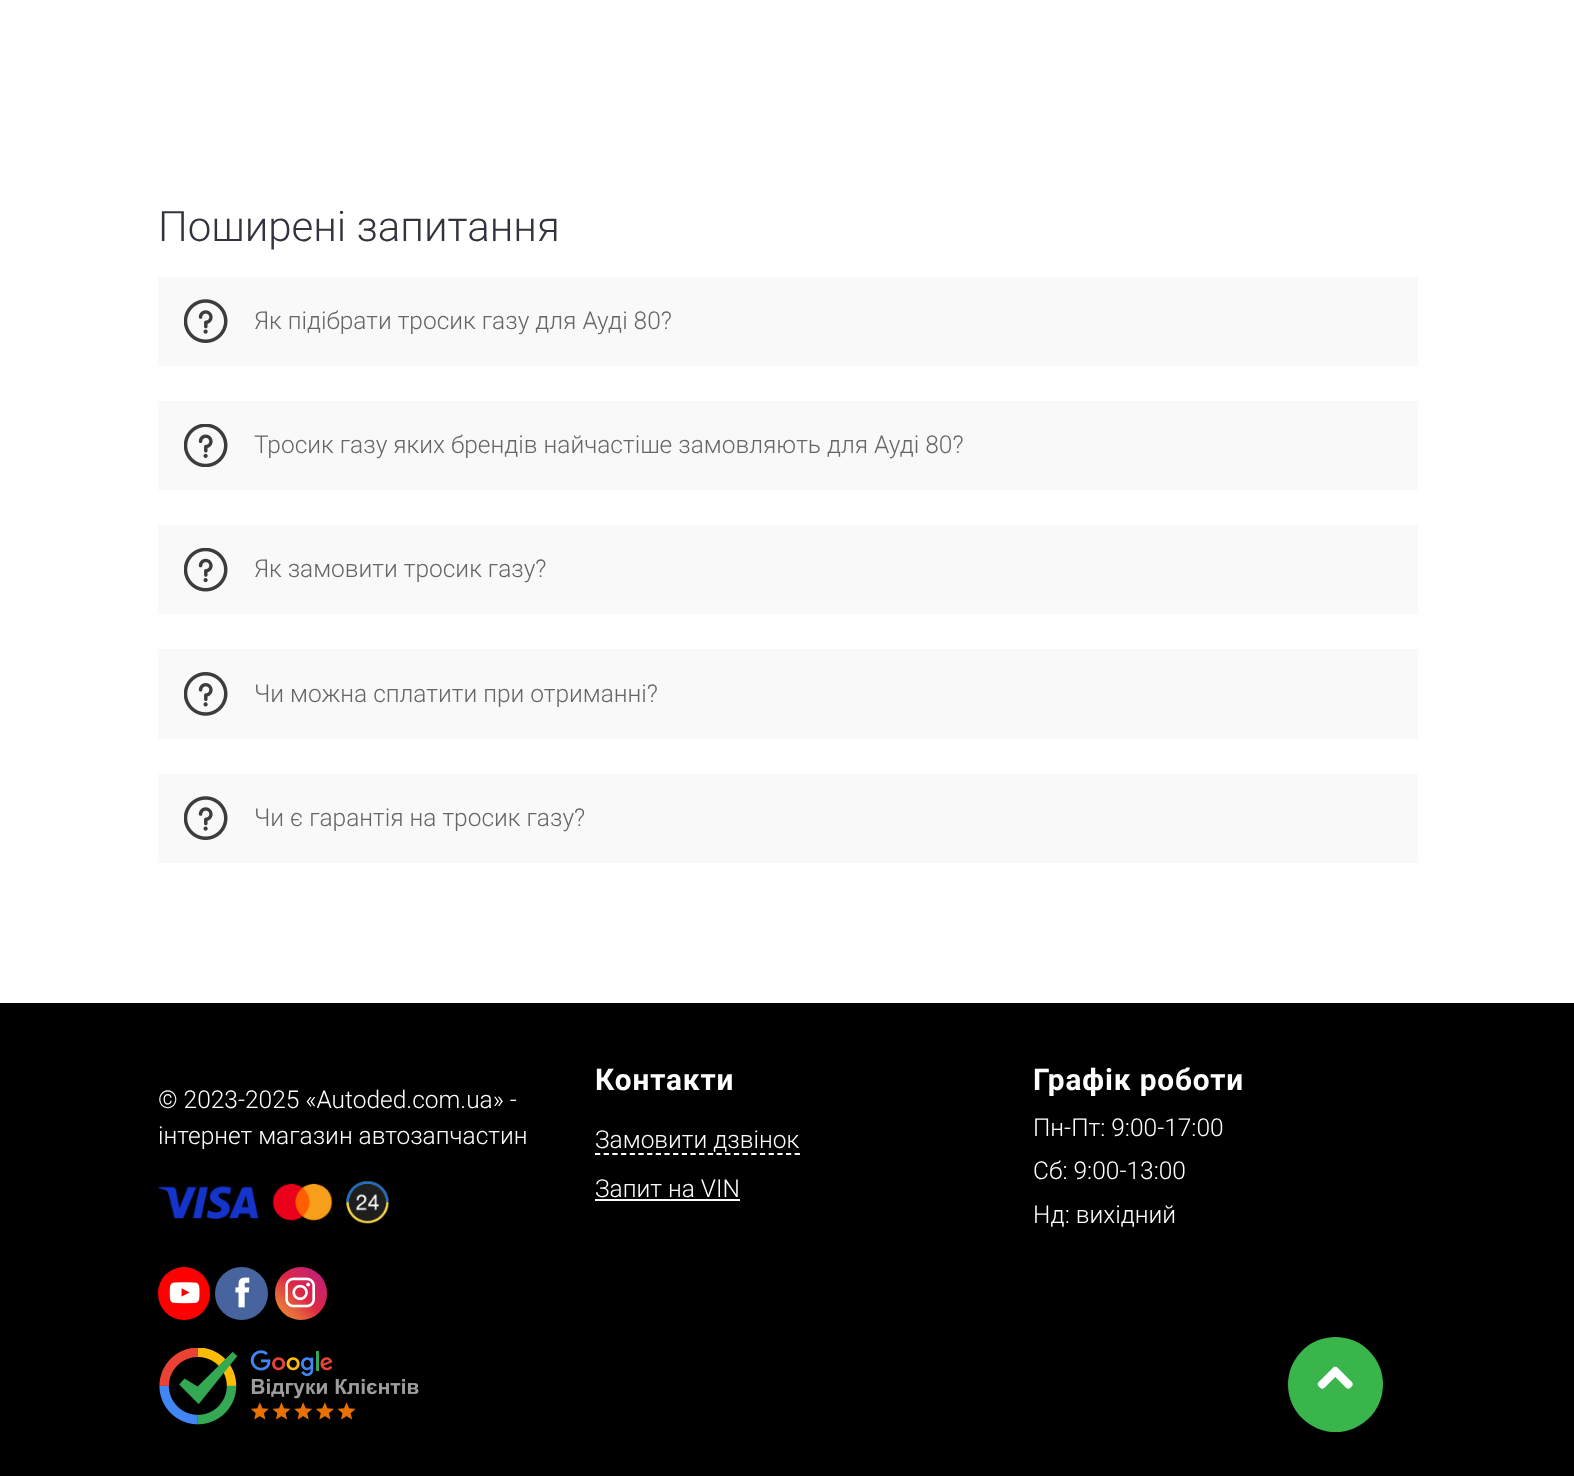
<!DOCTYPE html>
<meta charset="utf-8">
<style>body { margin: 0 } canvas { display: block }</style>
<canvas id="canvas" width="1574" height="1476"></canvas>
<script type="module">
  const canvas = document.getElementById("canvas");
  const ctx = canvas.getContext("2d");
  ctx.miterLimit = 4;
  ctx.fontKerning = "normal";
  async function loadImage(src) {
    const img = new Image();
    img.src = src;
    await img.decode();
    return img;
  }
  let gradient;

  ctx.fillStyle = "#ffffff";
  ctx.fillRect(0, 0, 1574, 1476);
  ctx.font = "300 42px Roboto";
  ctx.fillStyle = "#33333f";
  ctx.fillText("Поширені запитання", 158, 241);
  ctx.fillStyle = "#f9f9f9";
  ctx.fillRect(158, 277, 1260, 89);
  ctx.drawImage(await loadImage("img1.png"), 184, 299, 44, 44);
  ctx.font = "300 24.5px Roboto";
  ctx.fillStyle = "#666666";
  ctx.fillText("Як підібрати тросик газу для Ауді 80?", 254, 329);
  ctx.fillStyle = "#f9f9f9";
  ctx.fillRect(158, 401, 1260, 89);
  ctx.drawImage(await loadImage("img2.png"), 184, 424, 44, 43);
  ctx.fillStyle = "#666666";
  ctx.fillText("Тросик газу яких брендів найчастіше замовляють для Ауді 80?", 254, 453);
  ctx.fillStyle = "#f9f9f9";
  ctx.fillRect(158, 525, 1260, 89);
  ctx.drawImage(await loadImage("img3.png"), 184, 548, 44, 44);
  ctx.fillStyle = "#666666";
  ctx.fillText("Як замовити тросик газу?", 254, 577);
  ctx.fillStyle = "#f9f9f9";
  ctx.fillRect(158, 649, 1260, 90);
  ctx.drawImage(await loadImage("img4.png"), 184, 672, 44, 44);
  ctx.fillStyle = "#666666";
  ctx.fillText("Чи можна сплатити при отриманні?", 254, 702);
  ctx.fillStyle = "#f9f9f9";
  ctx.fillRect(158, 774, 1260, 89);
  ctx.drawImage(await loadImage("img1.png"), 184, 796, 44, 44);
  ctx.fillStyle = "#666666";
  ctx.fillText("Чи є гарантія на тросик газу?", 254, 826);
  ctx.fillStyle = "#000000";
  ctx.fillRect(0, 1003, 1574, 473);
  ctx.fillStyle = "#ffffff";
  ctx.fillText("© 2023-2025 «Autoded.com.ua» -", 158, 1108);
  ctx.fillText("інтернет магазин автозапчастин", 158, 1144);
  ctx.drawImage(await loadImage("img5.png"), 158, 1181, 231, 43);
  ctx.fillStyle = "#ff0000";
  ctx.beginPath();
  ctx.roundRect(158, 1267, 52, 53, 26);
  ctx.fill();
  ctx.drawImage(await loadImage("img6.png"), 169, 1282, 31, 22);
  ctx.fillStyle = "#48649e";
  ctx.beginPath();
  ctx.arc(241.5, 1293.5, 26.5, 0, Math.PI * 2);
  ctx.fill();
  ctx.drawImage(await loadImage("img7.png"), 235, 1277, 15, 31);
  gradient = ctx.createLinearGradient(275, 1320, 327, 1267);
  gradient.addColorStop(0, "#f09433");
  gradient.addColorStop(0.25, "#e6683c");
  gradient.addColorStop(0.5, "#dc2743");
  gradient.addColorStop(0.75, "#cc2366");
  gradient.addColorStop(1, "#bc1888");
  ctx.fillStyle = gradient;
  ctx.beginPath();
  ctx.roundRect(275, 1267, 52, 53, 26);
  ctx.fill();
  ctx.drawImage(await loadImage("img8.png"), 285, 1277, 30, 31);
  ctx.drawImage(await loadImage("img9.png"), 159, 1348, 260, 77);
  ctx.letterSpacing = "0.9px";
  ctx.font = "bold 29.75px Roboto";
  ctx.fillStyle = "#ffffff";
  ctx.fillText("Контакти", 595, 1090);
  ctx.letterSpacing = "0px";
  ctx.font = "300 24.5px Roboto";
  ctx.fillText("Замовити дзвінок", 595, 1148);
  ctx.beginPath();
  ctx.moveTo(595, 1154);
  ctx.lineTo(800, 1154);
  ctx.strokeStyle = "#ffffff";
  ctx.lineWidth = 1.8;
  ctx.setLineDash([5.25, 3.43]);
  ctx.stroke();
  ctx.fillText("Запит на VIN", 595, 1197);
  ctx.fillRect(595, 1199, 145, 2);
  ctx.letterSpacing = "0.9px";
  ctx.font = "bold 29.75px Roboto";
  ctx.fillText("Графік роботи", 1033, 1090);
  ctx.letterSpacing = "0px";
  ctx.font = "300 24.5px Roboto";
  ctx.fillText("Пн-Пт: 9:00-17:00", 1033, 1136);
  ctx.fillText("Сб: 9:00-13:00", 1033, 1179);
  ctx.fillText("Нд: вихідний", 1033, 1223);
  ctx.fillStyle = "#3ab54b";
  ctx.beginPath();
  ctx.arc(1335.5, 1384.5, 47.5, 0, Math.PI * 2);
  ctx.fill();
  ctx.drawImage(await loadImage("img10.png"), 1317, 1366, 36, 23);
</script>
